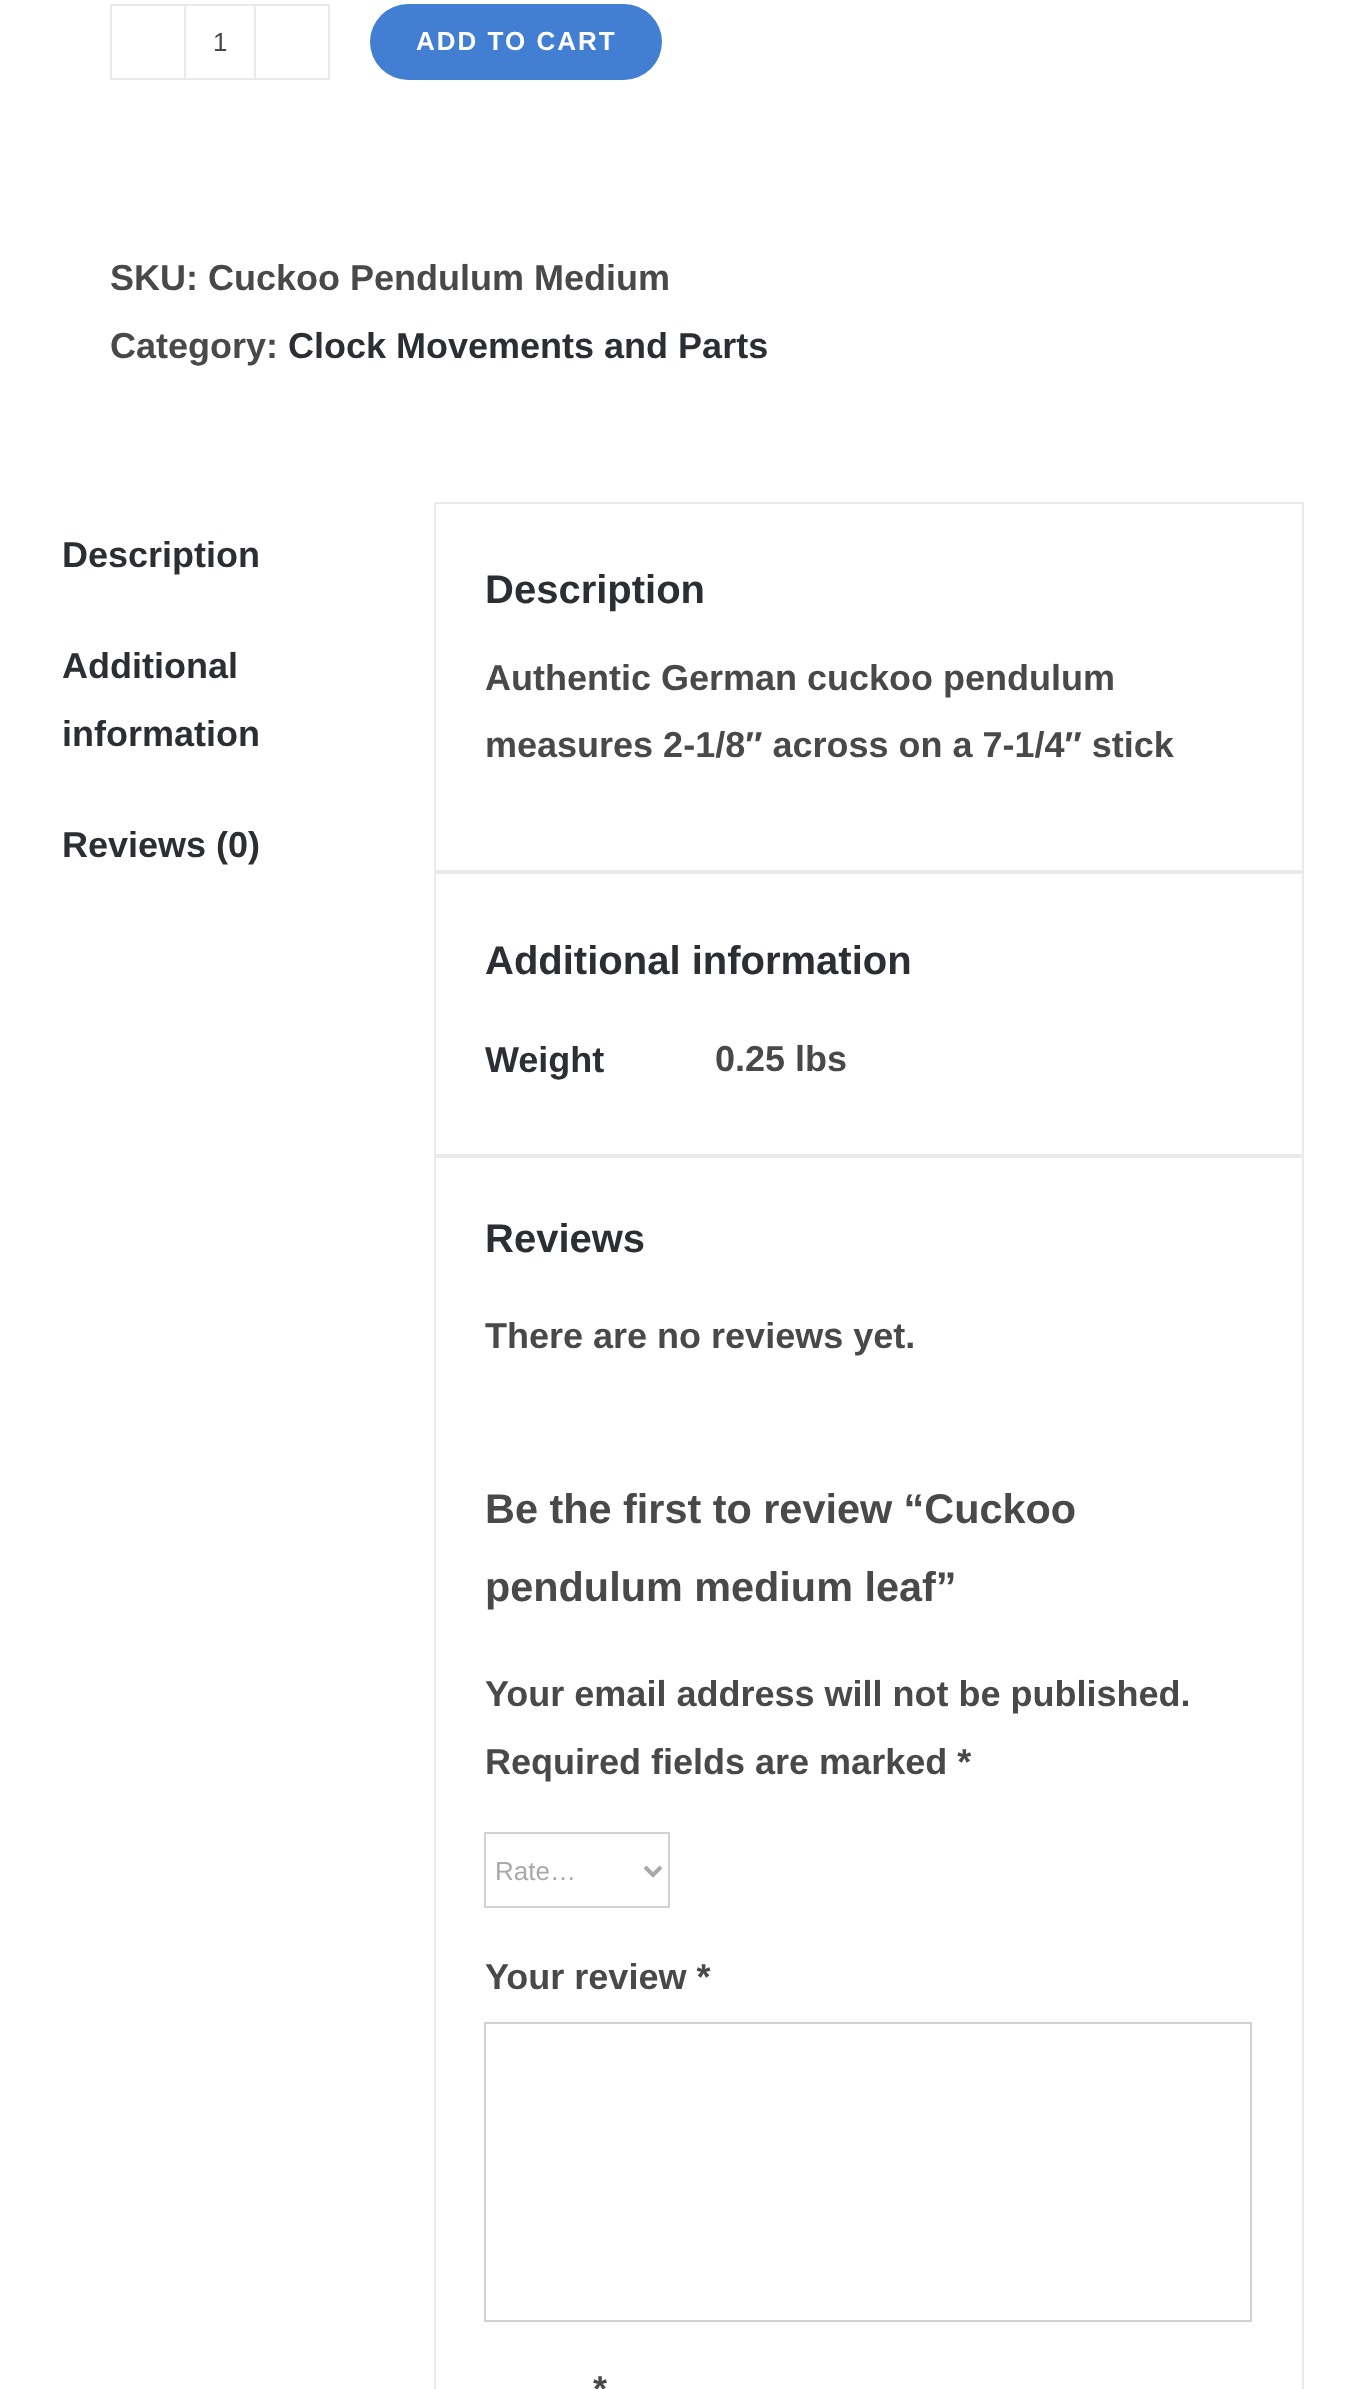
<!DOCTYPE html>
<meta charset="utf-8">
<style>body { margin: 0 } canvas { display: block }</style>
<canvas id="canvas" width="1364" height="2389"></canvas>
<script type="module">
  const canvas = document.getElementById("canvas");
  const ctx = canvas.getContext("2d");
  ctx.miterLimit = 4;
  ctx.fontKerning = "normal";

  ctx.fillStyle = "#ffffff";
  ctx.fillRect(0, 0, 1364, 2389);
  ctx.strokeStyle = "#eaeaea";
  ctx.lineWidth = 2;
  ctx.strokeRect(111, 5, 218, 74);
  ctx.fillStyle = "#eaeaea";
  ctx.fillRect(254, 6, 2, 72);
  ctx.fillRect(184, 6, 2, 72);
  ctx.font = "26px Liberation Sans";
  ctx.fillStyle = "#494949";
  ctx.fillText("1", 213, 51);
  ctx.fillStyle = "#427ed1";
  ctx.beginPath();
  ctx.roundRect(370, 4, 292, 76, 38);
  ctx.fill();
  ctx.letterSpacing = "2px";
  ctx.font = "bold 26px Liberation Sans";
  ctx.fillStyle = "#ffffff";
  ctx.fillText("ADD TO CART", 416, 50);
  ctx.letterSpacing = "0px";
  ctx.font = "bold 36px Liberation Sans";
  ctx.fillStyle = "#494949";
  ctx.fillText("SKU: Cuckoo Pendulum Medium", 110, 290);
  ctx.fillText("Category:", 110, 358);
  ctx.fillStyle = "#2b2e32";
  ctx.fillText("Clock Movements and Parts", 288, 358);
  ctx.fillText("Description", 62, 567);
  ctx.fillText("Additional", 62, 678);
  ctx.fillText("information", 62, 746);
  ctx.fillText("Reviews (0)", 62, 857);
  ctx.strokeRect(435, 503, 868, 368);
  ctx.font = "bold 40px Liberation Sans";
  ctx.fillText("Description", 485, 603);
  ctx.font = "bold 36px Liberation Sans";
  ctx.fillStyle = "#494949";
  ctx.fillText("Authentic German cuckoo pendulum", 485, 690);
  ctx.fillText("measures 2-1/8″ across on a 7-1/4″ stick", 485, 757);
  ctx.strokeRect(435, 873, 868, 282);
  ctx.font = "bold 40px Liberation Sans";
  ctx.fillStyle = "#2b2e32";
  ctx.fillText("Additional information", 485, 974);
  ctx.font = "bold 36px Liberation Sans";
  ctx.fillText("Weight", 485, 1072);
  ctx.fillStyle = "#494949";
  ctx.fillText("0.25 lbs", 715, 1071);
  ctx.strokeRect(435, 1157, 868, 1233);
  ctx.font = "bold 40px Liberation Sans";
  ctx.fillStyle = "#2b2e32";
  ctx.fillText("Reviews", 485, 1252);
  ctx.font = "bold 36px Liberation Sans";
  ctx.fillStyle = "#494949";
  ctx.fillText("There are no reviews yet.", 485, 1348);
  ctx.font = "bold 41.4px Liberation Sans";
  ctx.fillText("Be the first to review “Cuckoo", 485, 1523);
  ctx.fillText("pendulum medium leaf”", 485, 1601);
  ctx.font = "bold 36px Liberation Sans";
  ctx.fillText("Your email address will not be published.", 485, 1706);
  ctx.fillText("Required fields are marked *", 485, 1774);
  ctx.strokeStyle = "#d2d2d2";
  ctx.strokeRect(485, 1833, 184, 74);
  ctx.beginPath();
  ctx.moveTo(645, 1867);
  ctx.lineTo(653, 1875);
  ctx.lineTo(661, 1867);
  ctx.strokeStyle = "#aaa9a9";
  ctx.lineWidth = 4;
  ctx.stroke();
  ctx.font = "26px Liberation Sans";
  ctx.fillStyle = "#aaa9a9";
  ctx.fillText("Rate…", 495, 1880);
  ctx.font = "bold 36px Liberation Sans";
  ctx.fillStyle = "#494949";
  ctx.fillText("Your review *", 485, 1989);
  ctx.strokeStyle = "#d2d2d2";
  ctx.lineWidth = 2;
  ctx.strokeRect(485, 2023, 766, 298);
  ctx.fillText("*", 593, 2401);
</script>
